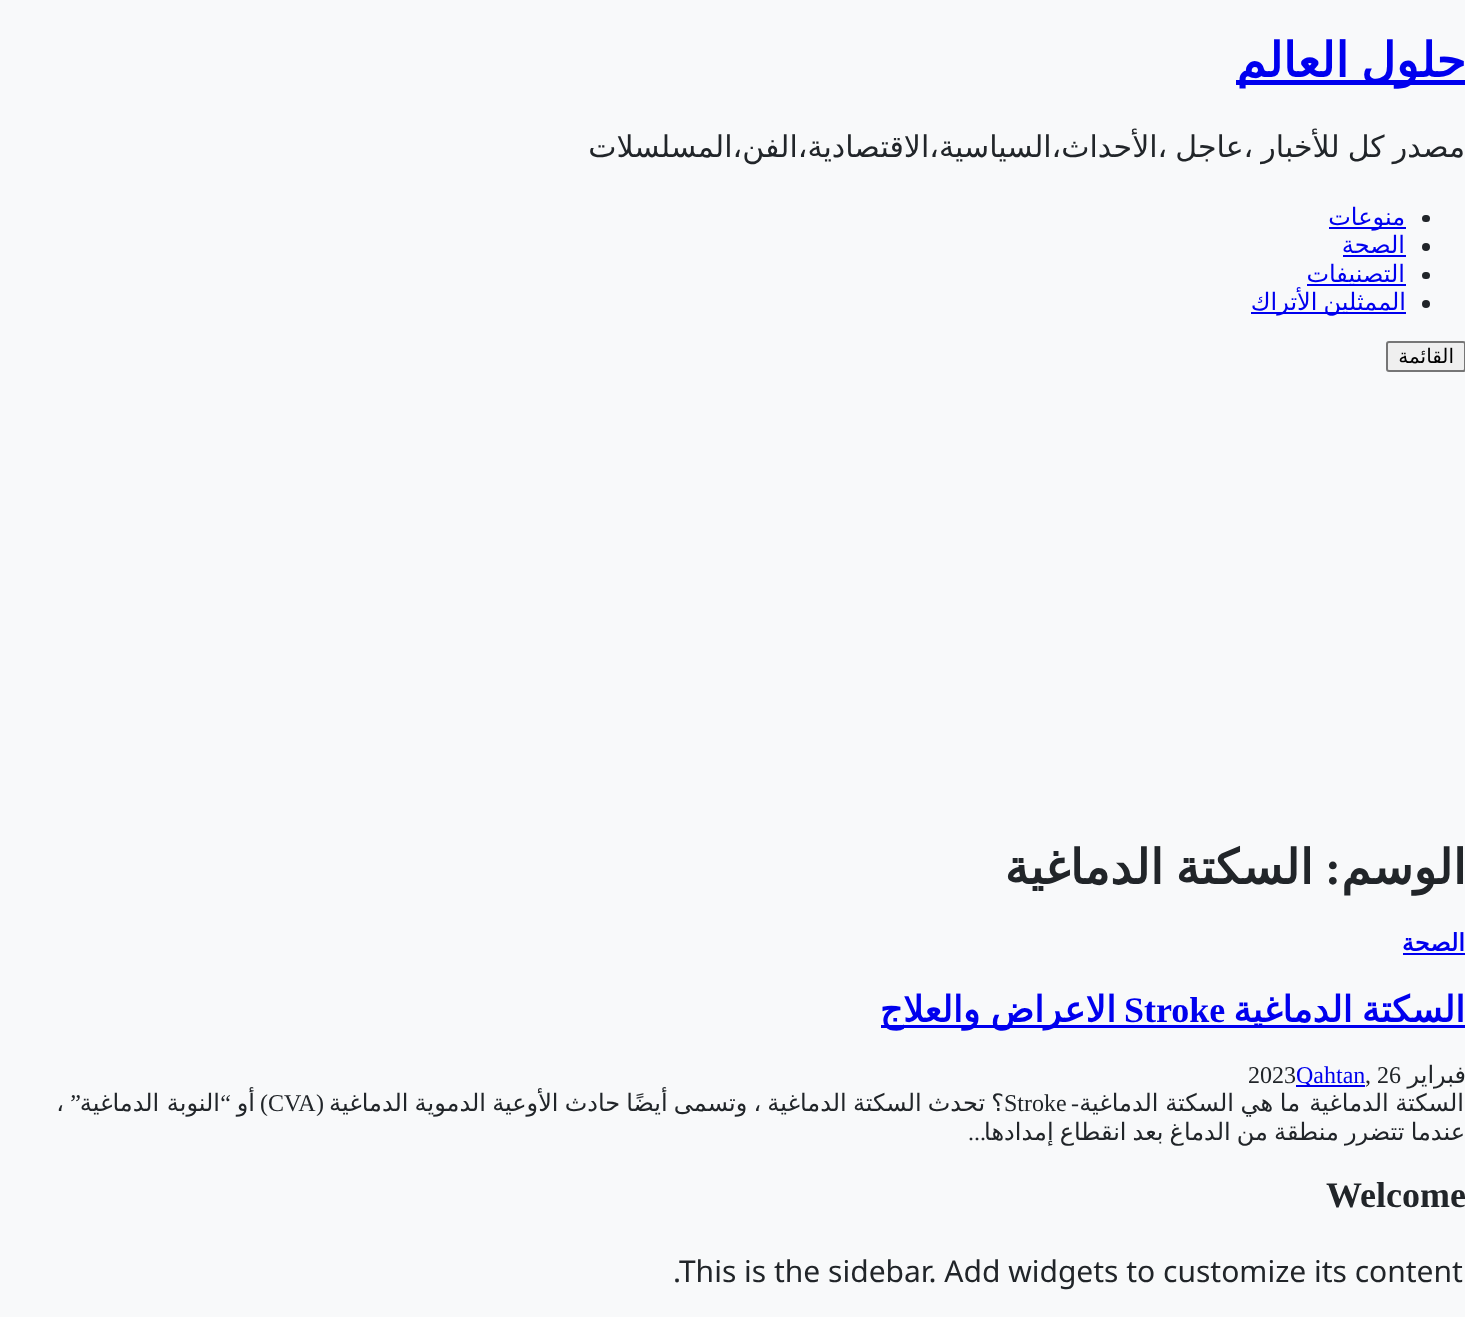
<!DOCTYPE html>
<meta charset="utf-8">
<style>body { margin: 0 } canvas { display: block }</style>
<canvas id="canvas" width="1465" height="1317"></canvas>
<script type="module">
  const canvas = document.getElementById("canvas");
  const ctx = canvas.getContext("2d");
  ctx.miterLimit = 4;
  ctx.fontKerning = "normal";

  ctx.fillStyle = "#f8f9fa";
  ctx.fillRect(0, 0, 1465, 1317);
  ctx.fillStyle = "#0000ee";
  ctx.fillRect(1236, 80, 229, 5);
  ctx.wordSpacing = "-3px";
  ctx.direction = "rtl";
  ctx.font = "bold 48px DejaVu Sans";
  ctx.fillText("حلول العالم", 1466, 77);
  ctx.wordSpacing = "-1.5px";
  ctx.font = "30px DejaVu Sans";
  ctx.fillStyle = "#212529";
  ctx.fillText("مصدر كل للأخبار ،عاجل ،الأحداث،السياسية،الاقتصادية،الفن،المسلسلات", 1465, 157);
  ctx.beginPath();
  ctx.roundRect(1422, 215, 8, 7, 3.5);
  ctx.fill();
  ctx.fillStyle = "#0000ee";
  ctx.fillRect(1329, 227, 77, 2);
  ctx.wordSpacing = "0px";
  ctx.font = "24px DejaVu Sans";
  ctx.fillText("منوعات", 1405, 225);
  ctx.fillStyle = "#212529";
  ctx.beginPath();
  ctx.arc(1426, 247, 4, 0, Math.PI * 2);
  ctx.fill();
  ctx.fillStyle = "#0000ee";
  ctx.fillText("الصحة", 1405, 253);
  ctx.fillRect(1343, 255, 63, 2);
  ctx.fillStyle = "#212529";
  ctx.beginPath();
  ctx.roundRect(1422, 272, 8, 7, 3.5);
  ctx.fill();
  ctx.fillStyle = "#0000ee";
  ctx.fillRect(1307, 284, 99, 2);
  ctx.fillText("التصنيفات", 1405, 282);
  ctx.fillStyle = "#212529";
  ctx.beginPath();
  ctx.arc(1426, 304, 4, 0, Math.PI * 2);
  ctx.fill();
  ctx.fillStyle = "#0000ee";
  ctx.fillRect(1251, 312, 155, 2);
  ctx.wordSpacing = "-1.5px";
  ctx.fillText("الممثلين الأتراك", 1406, 310);
  ctx.fillStyle = "#efefef";
  ctx.beginPath();
  ctx.roundRect(1387, 342, 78, 29, 2);
  ctx.fill();
  ctx.strokeStyle = "#767676";
  ctx.lineWidth = 2;
  ctx.stroke();
  ctx.wordSpacing = "0px";
  ctx.font = "20px DejaVu Sans";
  ctx.fillStyle = "#000000";
  ctx.fillText("القائمة", 1454, 363);
  ctx.font = "bold 48px DejaVu Sans";
  ctx.fillStyle = "#212529";
  ctx.fillText("الوسم", 1466, 884);
  ctx.font = "bold 48px Liberation Serif";
  ctx.fillText(":", 1341, 884);
  ctx.wordSpacing = "-3px";
  ctx.font = "bold 48px DejaVu Sans";
  ctx.fillText("السكتة الدماغية", 1313, 884);
  ctx.wordSpacing = "0px";
  ctx.font = "bold 24px DejaVu Sans";
  ctx.fillStyle = "#0000ee";
  ctx.fillText("الصحة", 1465, 951);
  ctx.fillRect(1403, 953, 62, 2);
  ctx.fillRect(881, 1025, 584, 3);
  ctx.wordSpacing = "-2px";
  ctx.font = "bold 36px DejaVu Sans";
  ctx.fillText("السكتة الدماغية", 1465, 1022);
  ctx.wordSpacing = "0px";
  ctx.direction = "ltr";
  ctx.font = "bold 36px Liberation Serif";
  ctx.fillText("Stroke", 1124, 1022);
  ctx.wordSpacing = "-1px";
  ctx.direction = "rtl";
  ctx.font = "bold 36px DejaVu Sans";
  ctx.fillText("الاعراض والعلاج", 1116, 1022);
  ctx.wordSpacing = "0px";
  ctx.font = "24px DejaVu Sans";
  ctx.fillStyle = "#212529";
  ctx.fillText("فبراير", 1466, 1083);
  ctx.direction = "ltr";
  ctx.font = "24px Liberation Serif";
  ctx.fillText(", 26", 1365, 1083);
  ctx.fillStyle = "#0000ee";
  ctx.fillRect(1296, 1085, 69, 2);
  ctx.fillText("Qahtan", 1296, 1083);
  ctx.fillStyle = "#212529";
  ctx.fillText("2023", 1248, 1083);
  ctx.wordSpacing = "-1px";
  ctx.direction = "rtl";
  ctx.font = "24px DejaVu Sans";
  ctx.fillText("السكتة الدماغية", 1464, 1111);
  ctx.fillText("ما هي السكتة الدماغية", 1300, 1111);
  ctx.wordSpacing = "0px";
  ctx.font = "24px Liberation Serif";
  ctx.fillText("-", 1079, 1111);
  ctx.wordSpacing = "-1.5px";
  ctx.font = "24px DejaVu Sans";
  ctx.fillText("؟ تحدث السكتة الدماغية ، وتسمى أيضًا حادث الأوعية الدموية الدماغية", 1004, 1111);
  ctx.wordSpacing = "0px";
  ctx.direction = "ltr";
  ctx.font = "24px Liberation Serif";
  ctx.fillText("Stroke", 1004, 1111);
  ctx.direction = "rtl";
  ctx.fillText("(", 324, 1111);
  ctx.direction = "ltr";
  ctx.fillText("CVA", 268, 1111);
  ctx.direction = "rtl";
  ctx.fillText(")", 268, 1111);
  ctx.font = "24px DejaVu Sans";
  ctx.fillText("أو", 255, 1111);
  ctx.font = "24px Liberation Serif";
  ctx.fillText("“", 231, 1111);
  ctx.font = "24px DejaVu Sans";
  ctx.fillText("النوبة الدماغية", 220, 1111);
  ctx.font = "24px Liberation Serif";
  ctx.fillText("”", 81, 1111);
  ctx.font = "24px DejaVu Sans";
  ctx.fillText("،", 64, 1111);
  ctx.wordSpacing = "-1.5px";
  ctx.fillText("عندما تتضرر منطقة من الدماغ بعد انقطاع إمدادها", 1465, 1140);
  ctx.wordSpacing = "0px";
  ctx.font = "24px Liberation Serif";
  ctx.fillText("...", 986, 1140);
  ctx.direction = "ltr";
  ctx.font = "bold 36px Liberation Serif";
  ctx.fillText("Welcome", 1326, 1207);
  ctx.font = "30px Noto Sans";
  ctx.fillText(".This is the sidebar. Add widgets to customize its content", 673, 1282);
</script>
